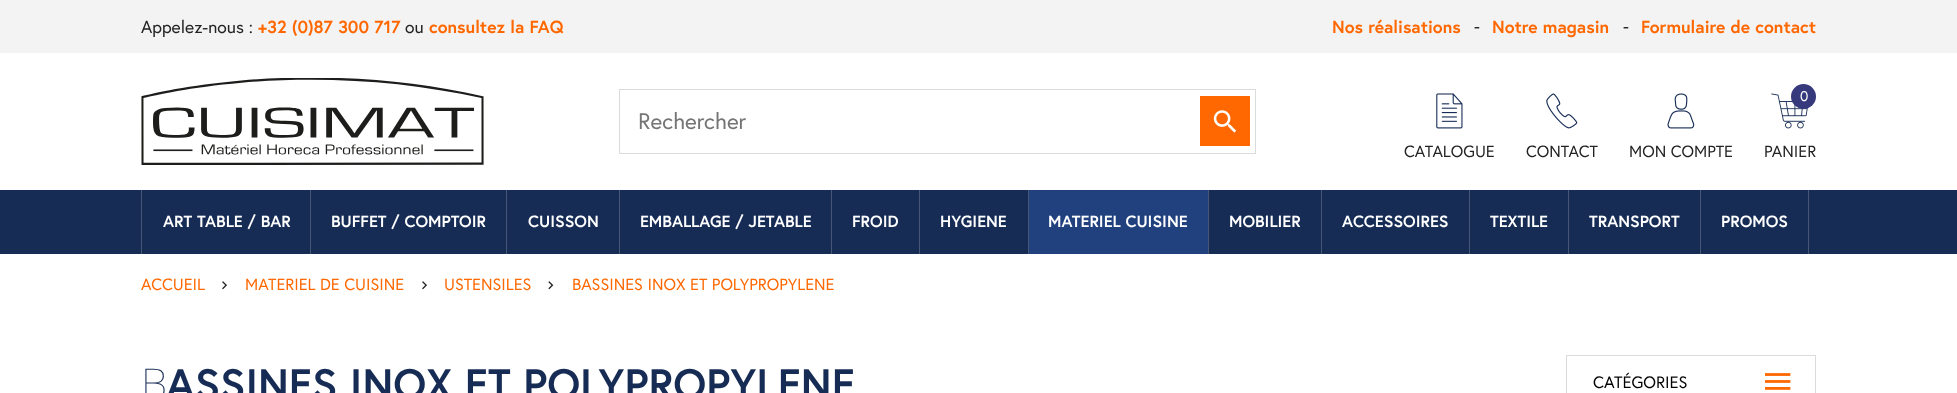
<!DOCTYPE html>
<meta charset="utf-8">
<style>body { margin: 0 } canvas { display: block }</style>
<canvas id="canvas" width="1957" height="393"></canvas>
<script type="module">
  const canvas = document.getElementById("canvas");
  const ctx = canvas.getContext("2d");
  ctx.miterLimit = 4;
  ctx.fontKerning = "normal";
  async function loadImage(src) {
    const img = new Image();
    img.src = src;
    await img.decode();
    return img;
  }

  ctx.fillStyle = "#ffffff";
  ctx.fillRect(0, 0, 1957, 393);
  ctx.fillStyle = "#f3f3f3";
  ctx.fillRect(0, 0, 1957, 53);
  ctx.font = "17.5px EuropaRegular";
  ctx.fillStyle = "#232323";
  ctx.fillText("Appelez-nous :", 141, 33);
  ctx.font = "bold 17.5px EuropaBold";
  ctx.fillStyle = "#ff6800";
  ctx.fillText("+32 (0)87 300 717", 258, 33);
  ctx.font = "17.5px EuropaRegular";
  ctx.fillStyle = "#232323";
  ctx.fillText("ou", 405, 33);
  ctx.font = "bold 17.5px EuropaBold";
  ctx.fillStyle = "#ff6800";
  ctx.fillText("consultez la FAQ", 429, 33);
  ctx.fillText("Nos réalisations", 1332, 33);
  ctx.font = "17.5px EuropaRegular";
  ctx.fillStyle = "#232323";
  ctx.fillText("-", 1474, 32);
  ctx.font = "bold 17.5px EuropaBold";
  ctx.fillStyle = "#ff6800";
  ctx.fillText("Notre magasin", 1492, 33);
  ctx.font = "17.5px EuropaRegular";
  ctx.fillStyle = "#232323";
  ctx.fillText("-", 1623, 32);
  ctx.font = "bold 17.5px EuropaBold";
  ctx.fillStyle = "#ff6800";
  ctx.fillText("Formulaire de contact", 1641, 33);
  ctx.drawImage(await loadImage("img1.png"), 141, 78, 343, 87);
  ctx.strokeStyle = "#dbdbdb";
  ctx.strokeRect(619.5, 89.5, 636, 64);
  ctx.font = "22.5px EuropaRegular";
  ctx.fillStyle = "#757575";
  ctx.fillText("Rechercher", 638, 129);
  ctx.fillStyle = "#ff6800";
  ctx.fillRect(1200, 96, 50, 50);
  ctx.drawImage(await loadImage("img2.png"), 1213, 110, 24, 23);
  ctx.drawImage(await loadImage("img3.png"), 1436, 93, 27, 36);
  ctx.font = "16.25px EuropaRegular";
  ctx.fillStyle = "#232323";
  ctx.fillText("CATALOGUE", 1404, 157);
  ctx.drawImage(await loadImage("img4.png"), 1546, 93, 32, 36);
  ctx.fillText("CONTACT", 1526, 157);
  ctx.drawImage(await loadImage("img5.png"), 1667, 93, 28, 36);
  ctx.fillText("MON COMPTE", 1629, 157);
  ctx.drawImage(await loadImage("img6.png"), 1771, 93, 37, 36);
  ctx.fillStyle = "#37397d";
  ctx.beginPath();
  ctx.arc(1803.5, 96.5, 12.5, 0, Math.PI * 2);
  ctx.fill();
  ctx.font = "14px EuropaRegular";
  ctx.fillStyle = "#ffffff";
  ctx.fillText("0", 1800, 101);
  ctx.font = "16.25px EuropaRegular";
  ctx.fillStyle = "#232323";
  ctx.fillText("PANIER", 1764, 157);
  ctx.fillStyle = "#162c55";
  ctx.fillRect(0, 190, 1957, 64);
  ctx.fillStyle = "#455677";
  ctx.fillRect(310, 190, 1, 64);
  ctx.fillRect(141, 190, 1, 64);
  ctx.font = "bold 16.25px EuropaBold";
  ctx.fillStyle = "#ffffff";
  ctx.fillText("ART TABLE / BAR", 163, 227);
  ctx.fillStyle = "#455677";
  ctx.fillRect(506, 190, 1, 64);
  ctx.fillStyle = "#ffffff";
  ctx.fillText("BUFFET / COMPTOIR", 331, 227);
  ctx.fillStyle = "#455677";
  ctx.fillRect(619, 190, 1, 64);
  ctx.fillStyle = "#ffffff";
  ctx.fillText("CUISSON", 528, 227);
  ctx.fillStyle = "#455677";
  ctx.fillRect(831, 190, 1, 64);
  ctx.fillStyle = "#ffffff";
  ctx.fillText("EMBALLAGE / JETABLE", 640, 227);
  ctx.fillStyle = "#455677";
  ctx.fillRect(919, 190, 1, 64);
  ctx.fillStyle = "#ffffff";
  ctx.fillText("FROID", 852, 227);
  ctx.fillStyle = "#455677";
  ctx.fillRect(1028, 190, 1, 64);
  ctx.fillStyle = "#ffffff";
  ctx.fillText("HYGIENE", 940, 227);
  ctx.fillStyle = "#455677";
  ctx.fillRect(1208, 190, 1, 64);
  ctx.fillStyle = "#20417e";
  ctx.fillRect(1029, 190, 179, 64);
  ctx.fillStyle = "#ffffff";
  ctx.fillText("MATERIEL CUISINE", 1048, 227);
  ctx.fillStyle = "#455677";
  ctx.fillRect(1321, 190, 1, 64);
  ctx.fillStyle = "#ffffff";
  ctx.fillText("MOBILIER", 1229, 227);
  ctx.fillStyle = "#455677";
  ctx.fillRect(1469, 190, 1, 64);
  ctx.fillStyle = "#ffffff";
  ctx.fillText("ACCESSOIRES", 1342, 227);
  ctx.fillStyle = "#455677";
  ctx.fillRect(1568, 190, 1, 64);
  ctx.fillStyle = "#ffffff";
  ctx.fillText("TEXTILE", 1490, 227);
  ctx.fillStyle = "#455677";
  ctx.fillRect(1700, 190, 1, 64);
  ctx.fillStyle = "#ffffff";
  ctx.fillText("TRANSPORT", 1589, 227);
  ctx.fillStyle = "#455677";
  ctx.fillRect(1808, 190, 1, 64);
  ctx.fillStyle = "#ffffff";
  ctx.fillText("PROMOS", 1721, 227);
  ctx.font = "16.25px EuropaRegular";
  ctx.fillStyle = "#ff6800";
  ctx.fillText("ACCUEIL", 141, 290);
  ctx.drawImage(await loadImage("img7.png"), 222, 281, 5, 9);
  ctx.fillText("MATERIEL DE CUISINE", 245, 290);
  ctx.drawImage(await loadImage("img7.png"), 422, 281, 5, 9);
  ctx.fillText("USTENSILES", 444, 290);
  ctx.drawImage(await loadImage("img8.png"), 548, 281, 6, 9);
  ctx.fillText("BASSINES INOX ET POLYPROPYLENE", 572, 290);
  ctx.font = "100 42.5px Noto Sans";
  ctx.fillStyle = "#162c55";
  ctx.fillText("B", 141, 399);
  ctx.font = "bold 42.5px EuropaBold";
  ctx.fillText("ASSINES INOX ET POLYPROPYLENE", 166, 399);
  ctx.strokeRect(1566.5, 355.5, 249, 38);
  ctx.font = "16.5px EuropaRegular";
  ctx.fillStyle = "#000000";
  ctx.fillText("CATÉGORIES", 1593, 388);
  ctx.drawImage(await loadImage("img9.png"), 1765, 373, 26, 17);
</script>
